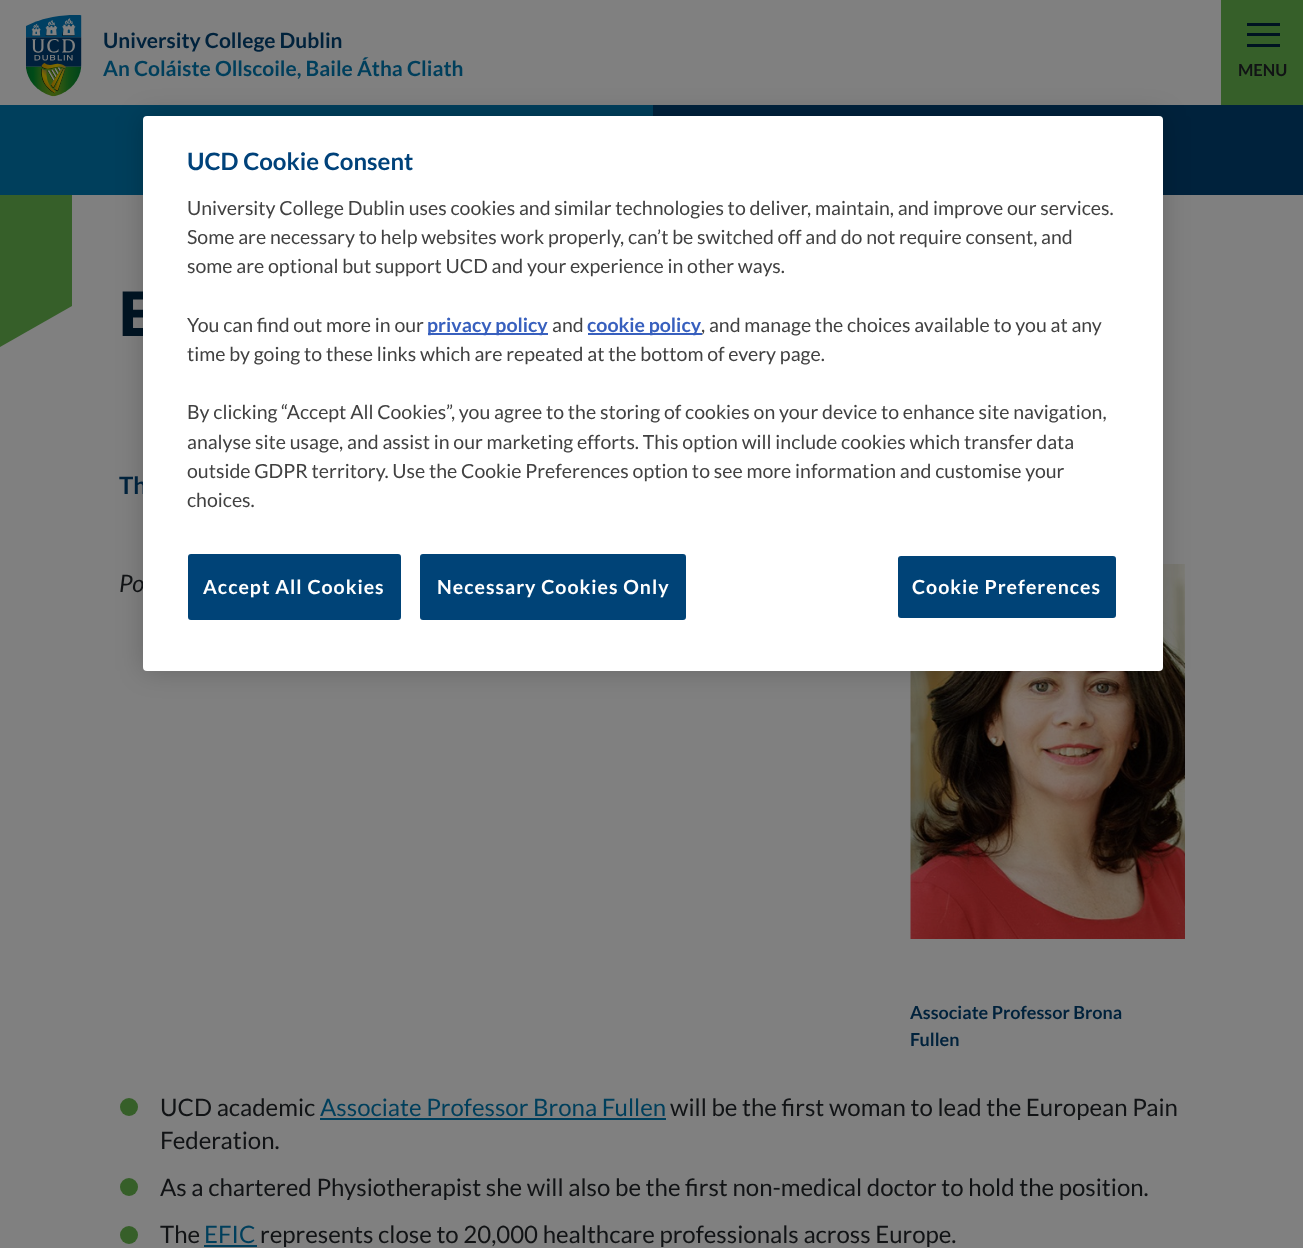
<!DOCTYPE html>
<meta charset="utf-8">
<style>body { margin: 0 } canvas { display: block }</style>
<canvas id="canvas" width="1303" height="1248"></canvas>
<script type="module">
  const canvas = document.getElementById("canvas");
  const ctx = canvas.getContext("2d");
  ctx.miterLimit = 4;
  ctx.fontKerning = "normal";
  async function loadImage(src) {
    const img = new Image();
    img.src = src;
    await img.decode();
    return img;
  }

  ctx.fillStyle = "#808080";
  ctx.fillRect(0, 0, 1303, 1248);
  ctx.drawImage(await loadImage("img1.png"), 26, 15, 56, 82);
  ctx.font = "bold 21px Lato";
  ctx.fillStyle = "#00223c";
  ctx.fillText("University College Dublin", 103, 48);
  ctx.fillStyle = "#003f5c";
  ctx.fillText("An Coláiste Ollscoile, Baile Átha Cliath", 103, 76);
  ctx.fillStyle = "#365f29";
  ctx.fillRect(1221, 0, 82, 105);
  ctx.fillStyle = "#001321";
  ctx.fillRect(1247, 23, 33, 3);
  ctx.fillRect(1247, 33, 33, 3);
  ctx.fillRect(1247, 44, 33, 3);
  ctx.font = "bold 16.5px Lato";
  ctx.fillStyle = "#111315";
  ctx.fillText("MENU", 1238, 76);
  ctx.fillStyle = "#003f5c";
  ctx.fillRect(0, 105, 653, 90);
  ctx.fillStyle = "#00223c";
  ctx.fillRect(653, 105, 650, 90);
  ctx.drawImage(await loadImage("img2.png"), 910, 564, 275, 375);
  ctx.fillStyle = "rgba(0, 0, 0, 0.2)";
  ctx.filter = "blur(13.5px)";
  ctx.beginPath();
  ctx.roundRect(143, 116, 1020, 555, 4);
  ctx.fill();
  ctx.filter = "none";
  ctx.font = "900 61px Lato";
  ctx.fillStyle = "#001321";
  ctx.fillText("E", 119, 336);
  ctx.font = "bold 24px Lato";
  ctx.fillStyle = "#00223c";
  ctx.fillText("Th", 119, 494);
  ctx.font = "italic 24px Lato";
  ctx.fillStyle = "#111315";
  ctx.fillText("Po", 119, 592);
  ctx.fillStyle = "#ffffff";
  ctx.beginPath();
  ctx.roundRect(143, 116, 1020, 555, 4);
  ctx.fill();
  ctx.font = "bold 24px Lato";
  ctx.fillStyle = "#00427a";
  ctx.fillText("UCD Cookie Consent", 187, 170);
  ctx.font = "19.5px Lato";
  ctx.fillStyle = "#414141";
  ctx.fillText("University College Dublin uses cookies and similar technologies to deliver, maintain, and improve our services.", 187, 215);
  ctx.fillText("Some are necessary to help websites work properly, can’t be switched off and do not require consent, and", 187, 244);
  ctx.fillText("some are optional but support UCD and your experience in other ways.", 187, 273);
  ctx.fillText("You can find out more in our", 187, 332);
  ctx.fillStyle = "#3860be";
  ctx.fillRect(428, 333, 120, 2);
  ctx.font = "bold 19.5px Lato";
  ctx.fillText("privacy policy", 427, 332);
  ctx.font = "19.5px Lato";
  ctx.fillStyle = "#414141";
  ctx.fillText("and", 552, 332);
  ctx.fillStyle = "#3860be";
  ctx.fillRect(588, 333, 114, 2);
  ctx.font = "bold 19.5px Lato";
  ctx.fillText("cookie policy", 587, 332);
  ctx.font = "19.5px Lato";
  ctx.fillStyle = "#414141";
  ctx.fillText(", and manage the choices available to you at any", 701, 332);
  ctx.fillText("time by going to these links which are repeated at the bottom of every page.", 187, 361);
  ctx.fillText("By clicking “Accept All Cookies”, you agree to the storing of cookies on your device to enhance site navigation,", 187, 419);
  ctx.fillText("analyse site usage, and assist in our marketing efforts. This option will include cookies which transfer data", 187, 449);
  ctx.fillText("outside GDPR territory. Use the Cookie Preferences option to see more information and customise your", 187, 478);
  ctx.fillText("choices.", 187, 507);
  ctx.fillStyle = "#004377";
  ctx.beginPath();
  ctx.roundRect(189, 555, 211, 64, 2);
  ctx.fill();
  ctx.strokeStyle = "#004377";
  ctx.lineWidth = 2;
  ctx.stroke();
  ctx.letterSpacing = "1px";
  ctx.font = "bold 19.5px Lato";
  ctx.fillStyle = "#ffffff";
  ctx.fillText("Accept All Cookies", 203, 594);
  ctx.fillStyle = "#004377";
  ctx.beginPath();
  ctx.roundRect(421, 555, 264, 64, 2);
  ctx.fill();
  ctx.stroke();
  ctx.fillStyle = "#ffffff";
  ctx.fillText("Necessary Cookies Only", 437, 594);
  ctx.fillStyle = "#004377";
  ctx.beginPath();
  ctx.roundRect(897, 555, 220, 64, 4);
  ctx.fill();
  ctx.strokeStyle = "#ffffff";
  ctx.stroke();
  ctx.fillStyle = "#ffffff";
  ctx.fillText("Cookie Preferences", 912, 594);
  ctx.fillStyle = "#365f29";
  ctx.beginPath();
  ctx.moveTo(72, 306);
  ctx.lineTo(0, 347);
  ctx.lineTo(0, 195);
  ctx.lineTo(72, 195);
  ctx.closePath();
  ctx.fill();
  ctx.letterSpacing = "0px";
  ctx.font = "bold 18px Lato";
  ctx.fillStyle = "#00223c";
  ctx.fillText("Associate Professor Brona", 910, 1019);
  ctx.fillText("Fullen", 910, 1046);
  ctx.fillStyle = "#365f29";
  ctx.beginPath();
  ctx.arc(129, 1107, 9, 0, Math.PI * 2);
  ctx.fill();
  ctx.font = "24px Lato";
  ctx.fillStyle = "#111315";
  ctx.fillText("UCD academic", 160, 1116);
  ctx.fillStyle = "#003f5c";
  ctx.fillText("Associate Professor Brona Fullen", 320, 1116);
  ctx.fillRect(320, 1118, 346, 2);
  ctx.fillStyle = "#111315";
  ctx.fillText("will be the first woman to lead the European Pain", 670, 1116);
  ctx.fillText("Federation.", 160, 1149);
  ctx.fillStyle = "#365f29";
  ctx.beginPath();
  ctx.arc(129, 1187, 9, 0, Math.PI * 2);
  ctx.fill();
  ctx.fillStyle = "#111315";
  ctx.fillText("As a chartered Physiotherapist she will also be the first non-medical doctor to hold the position.", 160, 1196);
  ctx.fillStyle = "#365f29";
  ctx.beginPath();
  ctx.arc(129, 1235, 9, 0, Math.PI * 2);
  ctx.fill();
  ctx.fillStyle = "#111315";
  ctx.fillText("The", 160, 1243);
  ctx.fillStyle = "#003f5c";
  ctx.fillText("EFIC", 204, 1243);
  ctx.fillRect(204, 1245, 53, 2);
  ctx.fillStyle = "#111315";
  ctx.fillText("represents close to 20,000 healthcare professionals across Europe.", 260, 1243);
</script>
